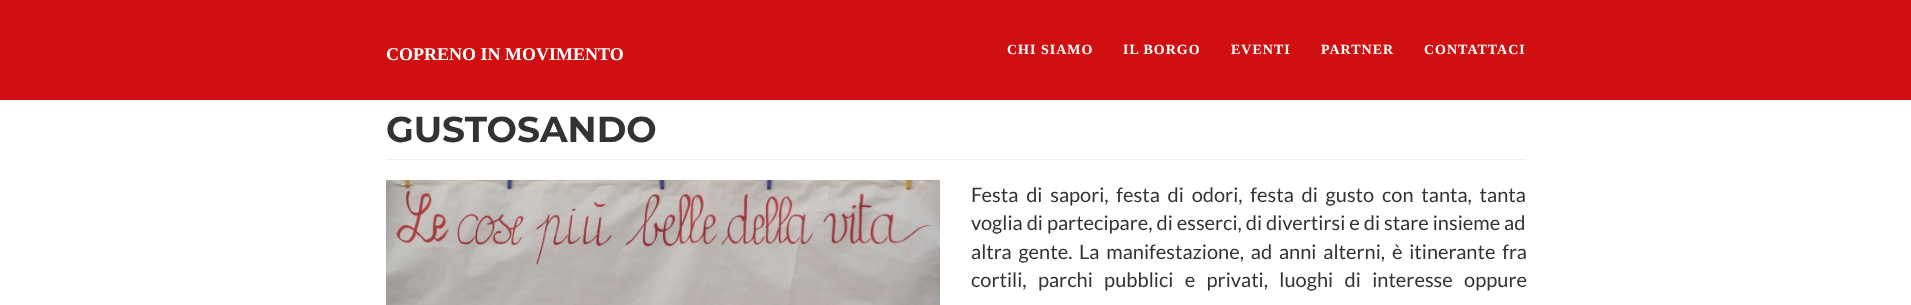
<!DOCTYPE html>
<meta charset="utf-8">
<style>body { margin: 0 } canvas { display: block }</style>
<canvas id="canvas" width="1911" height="305"></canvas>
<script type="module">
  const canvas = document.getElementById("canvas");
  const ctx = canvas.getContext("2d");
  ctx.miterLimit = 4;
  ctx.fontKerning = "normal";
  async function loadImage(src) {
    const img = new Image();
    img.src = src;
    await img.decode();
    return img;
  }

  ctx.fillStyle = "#ffffff";
  ctx.fillRect(0, 0, 1911, 305);
  ctx.fillStyle = "#d01010";
  ctx.fillRect(0, 0, 1911, 100);
  ctx.font = "bold 18px Liberation Serif";
  ctx.fillStyle = "#ffffff";
  ctx.fillText("COPRENO IN MOVIMENTO", 386, 60);
  ctx.letterSpacing = "1px";
  ctx.font = "bold 14px Liberation Serif";
  ctx.fillText("CHI SIAMO", 1007, 54);
  ctx.fillText("IL BORGO", 1123, 54);
  ctx.fillText("EVENTI", 1231, 54);
  ctx.fillText("PARTNER", 1321, 54);
  ctx.fillText("CONTATTACI", 1424, 54);
  ctx.fillStyle = "#eeeeee";
  ctx.fillRect(386, 159, 1140, 1);
  ctx.letterSpacing = "0px";
  ctx.font = "bold 36px Montserrat";
  ctx.fillStyle = "#333333";
  ctx.fillText("GUSTOSANDO", 386, 142);
  ctx.drawImage(await loadImage("img1.png"), 386, 180, 554, 125);
  ctx.wordSpacing = "3.9px";
  ctx.font = "20px Lato";
  ctx.fillText("Festa di sapori, festa di odori, festa di gusto con tanta, tanta", 971, 202);
  ctx.wordSpacing = "0.1px";
  ctx.fillText("voglia di partecipare, di esserci, di divertirsi e di stare insieme ad", 971, 230);
  ctx.wordSpacing = "3px";
  ctx.fillText("altra gente.", 971, 259);
  ctx.fillText("La manifestazione, ad anni alterni, è itinerante fra", 1079, 259);
  ctx.wordSpacing = "7.5px";
  ctx.fillText("cortili, parchi pubblici e privati, luoghi di interesse oppure", 971, 287);
</script>
